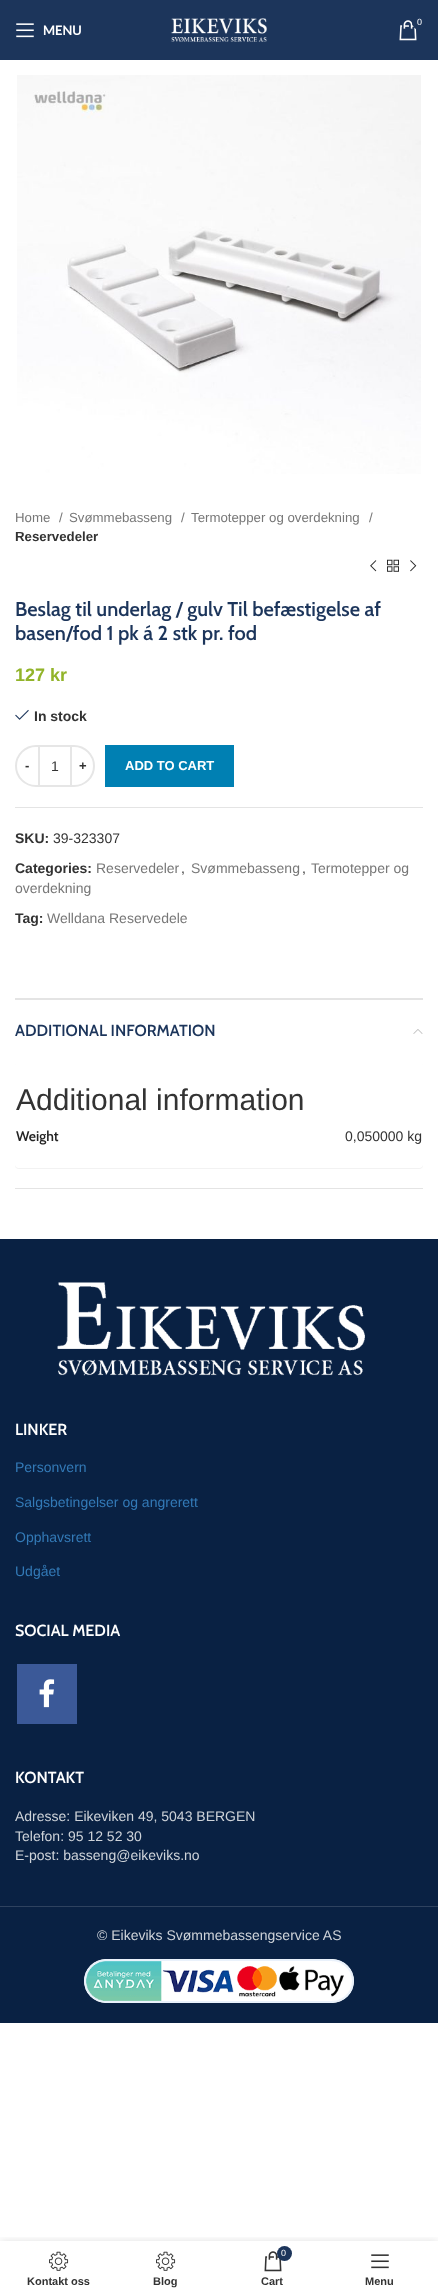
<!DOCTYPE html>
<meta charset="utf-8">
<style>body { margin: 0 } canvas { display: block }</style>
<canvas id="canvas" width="438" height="2296"></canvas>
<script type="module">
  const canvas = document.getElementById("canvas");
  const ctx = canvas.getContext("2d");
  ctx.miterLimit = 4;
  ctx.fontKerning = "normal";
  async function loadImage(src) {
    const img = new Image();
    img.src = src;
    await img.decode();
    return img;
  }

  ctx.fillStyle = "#ffffff";
  ctx.fillRect(0, 0, 438, 2296);
  ctx.fillStyle = "#1c355b";
  ctx.fillRect(0, 0, 438, 60);
  ctx.drawImage(await loadImage("img1.png"), 171, 18, 96, 24);
  ctx.drawImage(await loadImage("img2.png"), 399, 20, 18, 21);
  ctx.beginPath();
  ctx.arc(419.5, 22.5, 7.5, 0, Math.PI * 2);
  ctx.fill();
  ctx.font = "9px Liberation Sans";
  ctx.fillStyle = "#ffffff";
  ctx.fillText("0", 417, 25);
  ctx.drawImage(await loadImage("img3.png"), 16, 23, 18, 15);
  ctx.font = "bold 13px Lato";
  ctx.fillText("MENU", 43, 35);
  ctx.drawImage(await loadImage("img4.png"), 17, 75, 404, 399);
  ctx.font = "13.25px Liberation Sans";
  ctx.fillStyle = "#777777";
  ctx.fillText("Home", 15, 522);
  ctx.fillText("/", 59, 522);
  ctx.fillText("Svømmebasseng", 69, 522);
  ctx.fillText("/", 181, 522);
  ctx.fillText("Termotepper og overdekning", 191, 522);
  ctx.fillText("/", 369, 522);
  ctx.font = "bold 13.25px Liberation Sans";
  ctx.fillStyle = "#333333";
  ctx.fillText("Reservedeler", 15, 541);
  ctx.drawImage(await loadImage("img5.png"), 370, 560, 7, 12);
  ctx.drawImage(await loadImage("img6.png"), 387, 559, 12, 13);
  ctx.drawImage(await loadImage("img7.png"), 410, 560, 7, 12);
  ctx.font = "600 20px Cabin";
  ctx.fillStyle = "#1c355b";
  ctx.fillText("Beslag til underlag / gulv Til befæstigelse af", 15, 616);
  ctx.fillText("basen/fod 1 pk á 2 stk pr. fod", 15, 640);
  ctx.font = "bold 18px Liberation Sans";
  ctx.fillStyle = "#92b42a";
  ctx.fillText("127 kr", 15, 681);
  ctx.drawImage(await loadImage("img8.png"), 15, 709, 14, 11);
  ctx.font = "bold 14px Liberation Sans";
  ctx.fillStyle = "#333333";
  ctx.fillText("In stock", 34, 721);
  ctx.beginPath();
  ctx.roundRect(16, 746, 23, 40, [20, 0, 0, 20]);
  ctx.strokeStyle = "#e6e6e6";
  ctx.lineWidth = 2;
  ctx.stroke();
  ctx.font = "bold 13px Liberation Sans";
  ctx.fillText("-", 25, 770);
  ctx.fillStyle = "#e6e6e6";
  ctx.fillRect(40, 745, 30, 2);
  ctx.fillRect(40, 785, 30, 2);
  ctx.font = "14px Liberation Sans";
  ctx.fillStyle = "#333333";
  ctx.fillText("1", 51, 771);
  ctx.beginPath();
  ctx.roundRect(71, 746, 23, 40, [0, 20, 20, 0]);
  ctx.stroke();
  ctx.font = "bold 13px Liberation Sans";
  ctx.fillText("+", 79, 770);
  ctx.fillStyle = "#0080b3";
  ctx.fillRect(105, 745, 129, 42);
  ctx.fillStyle = "#ffffff";
  ctx.fillText("ADD TO CART", 125, 770);
  ctx.fillStyle = "#e4e4e4";
  ctx.fillRect(15, 807, 408, 1);
  ctx.font = "bold 14px Liberation Sans";
  ctx.fillStyle = "#333333";
  ctx.fillText("SKU:", 15, 843);
  ctx.font = "14px Liberation Sans";
  ctx.fillText("39-323307", 53, 843);
  ctx.font = "bold 14px Liberation Sans";
  ctx.fillText("Categories:", 15, 873);
  ctx.font = "14px Liberation Sans";
  ctx.fillStyle = "#777777";
  ctx.fillText("Reservedeler", 96, 873);
  ctx.fillStyle = "#333333";
  ctx.fillText(",", 181, 873);
  ctx.fillStyle = "#777777";
  ctx.fillText("Svømmebasseng", 191, 873);
  ctx.fillStyle = "#333333";
  ctx.fillText(",", 302, 873);
  ctx.fillStyle = "#777777";
  ctx.fillText("Termotepper og", 311, 873);
  ctx.fillText("overdekning", 15, 893);
  ctx.font = "bold 14px Liberation Sans";
  ctx.fillStyle = "#333333";
  ctx.fillText("Tag:", 15, 923);
  ctx.font = "14px Liberation Sans";
  ctx.fillStyle = "#777777";
  ctx.fillText("Welldana Reservedele", 47, 923);
  ctx.fillStyle = "#e4e4e4";
  ctx.fillRect(15, 998, 408, 2);
  ctx.fillRect(15, 1188, 408, 1);
  ctx.font = "600 16px Cabin";
  ctx.fillStyle = "#1c355b";
  ctx.fillText("ADDITIONAL INFORMATION", 15, 1036);
  ctx.drawImage(await loadImage("img9.png"), 413, 1029, 10, 5);
  ctx.fillStyle = "rgba(0, 0, 0, 0.05)";
  ctx.filter = "blur(0.5px)";
  ctx.beginPath();
  ctx.roundRect(15, 1063, 408, 106, 4);
  ctx.fill();
  ctx.filter = "none";
  ctx.fillStyle = "#ffffff";
  ctx.beginPath();
  ctx.roundRect(15, 1062, 408, 106, 4);
  ctx.fill();
  ctx.font = "30px Liberation Sans";
  ctx.fillStyle = "#333333";
  ctx.fillText("Additional information", 16, 1110);
  ctx.font = "600 14px Cabin";
  ctx.fillStyle = "#242424";
  ctx.fillText("Weight", 16, 1141);
  ctx.font = "14px Liberation Sans";
  ctx.fillStyle = "#333333";
  ctx.fillText("0,050000 kg", 345, 1141);
  ctx.fillStyle = "#092143";
  ctx.fillRect(0, 1239, 438, 784);
  ctx.drawImage(await loadImage("img10.png"), 57, 1282, 308, 94);
  ctx.font = "600 16px Cabin";
  ctx.fillStyle = "#ffffff";
  ctx.fillText("LINKER", 15, 1435);
  ctx.font = "14px Liberation Sans";
  ctx.fillStyle = "#337ab7";
  ctx.fillText("Personvern", 15, 1472);
  ctx.fillText("Salgsbetingelser og angrerett", 15, 1507);
  ctx.fillText("Opphavsrett", 15, 1542);
  ctx.fillText("Udgået", 15, 1576);
  ctx.font = "600 16px Cabin";
  ctx.fillStyle = "#ffffff";
  ctx.fillText("SOCIAL MEDIA", 15, 1636);
  ctx.fillStyle = "#3b5998";
  ctx.fillRect(17, 1664, 60, 60);
  ctx.drawImage(await loadImage("img11.png"), 39, 1679, 16, 29);
  ctx.fillStyle = "#ffffff";
  ctx.fillText("KONTAKT", 15, 1783);
  ctx.font = "14px Liberation Sans";
  ctx.fillStyle = "#ced3d9";
  ctx.fillText("Adresse: Eikeviken 49, 5043 BERGEN", 15, 1821);
  ctx.fillText("Telefon: 95 12 52 30", 15, 1841);
  ctx.fillText("E-post: basseng@eikeviks.no", 15, 1860);
  ctx.fillStyle = "#2e425f";
  ctx.fillRect(0, 1906, 438, 1);
  ctx.fillStyle = "#ced3d9";
  ctx.fillText("© Eikeviks Svømmebassengservice AS", 97, 1940);
  ctx.fillStyle = "#ffffff";
  ctx.beginPath();
  ctx.roundRect(84, 1959, 270, 44, 22);
  ctx.fill();
  ctx.drawImage(await loadImage("img12.png"), 84, 1959, 270, 44);
  ctx.save();
  ctx.beginPath();
  ctx.rect(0, 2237, 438, 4);
  ctx.clip();
  ctx.fillStyle = "rgba(0, 0, 0, 0.12)";
  ctx.filter = "blur(4.5px)";
  ctx.beginPath();
  ctx.rect(0, 2241, 438, 55);
  ctx.fill();
  ctx.filter = "none";
  ctx.restore();
  ctx.drawImage(await loadImage("img13.png"), 49, 2251, 20, 20);
  ctx.font = "bold 11px Liberation Sans";
  ctx.fillStyle = "#333333";
  ctx.fillText("Kontakt oss", 27, 2285);
  ctx.drawImage(await loadImage("img13.png"), 156, 2251, 20, 20);
  ctx.fillText("Blog", 153, 2285);
  ctx.drawImage(await loadImage("img14.png"), 264, 2251, 18, 21);
  ctx.fillStyle = "#1c355b";
  ctx.beginPath();
  ctx.arc(284.5, 2253.5, 7.5, 0, Math.PI * 2);
  ctx.fill();
  ctx.font = "9px Liberation Sans";
  ctx.fillStyle = "#ffffff";
  ctx.fillText("0", 281, 2256);
  ctx.font = "bold 11px Liberation Sans";
  ctx.fillStyle = "#333333";
  ctx.fillText("Cart", 261, 2285);
  ctx.drawImage(await loadImage("img15.png"), 371, 2254, 18, 15);
  ctx.fillText("Menu", 365, 2285);
</script>
